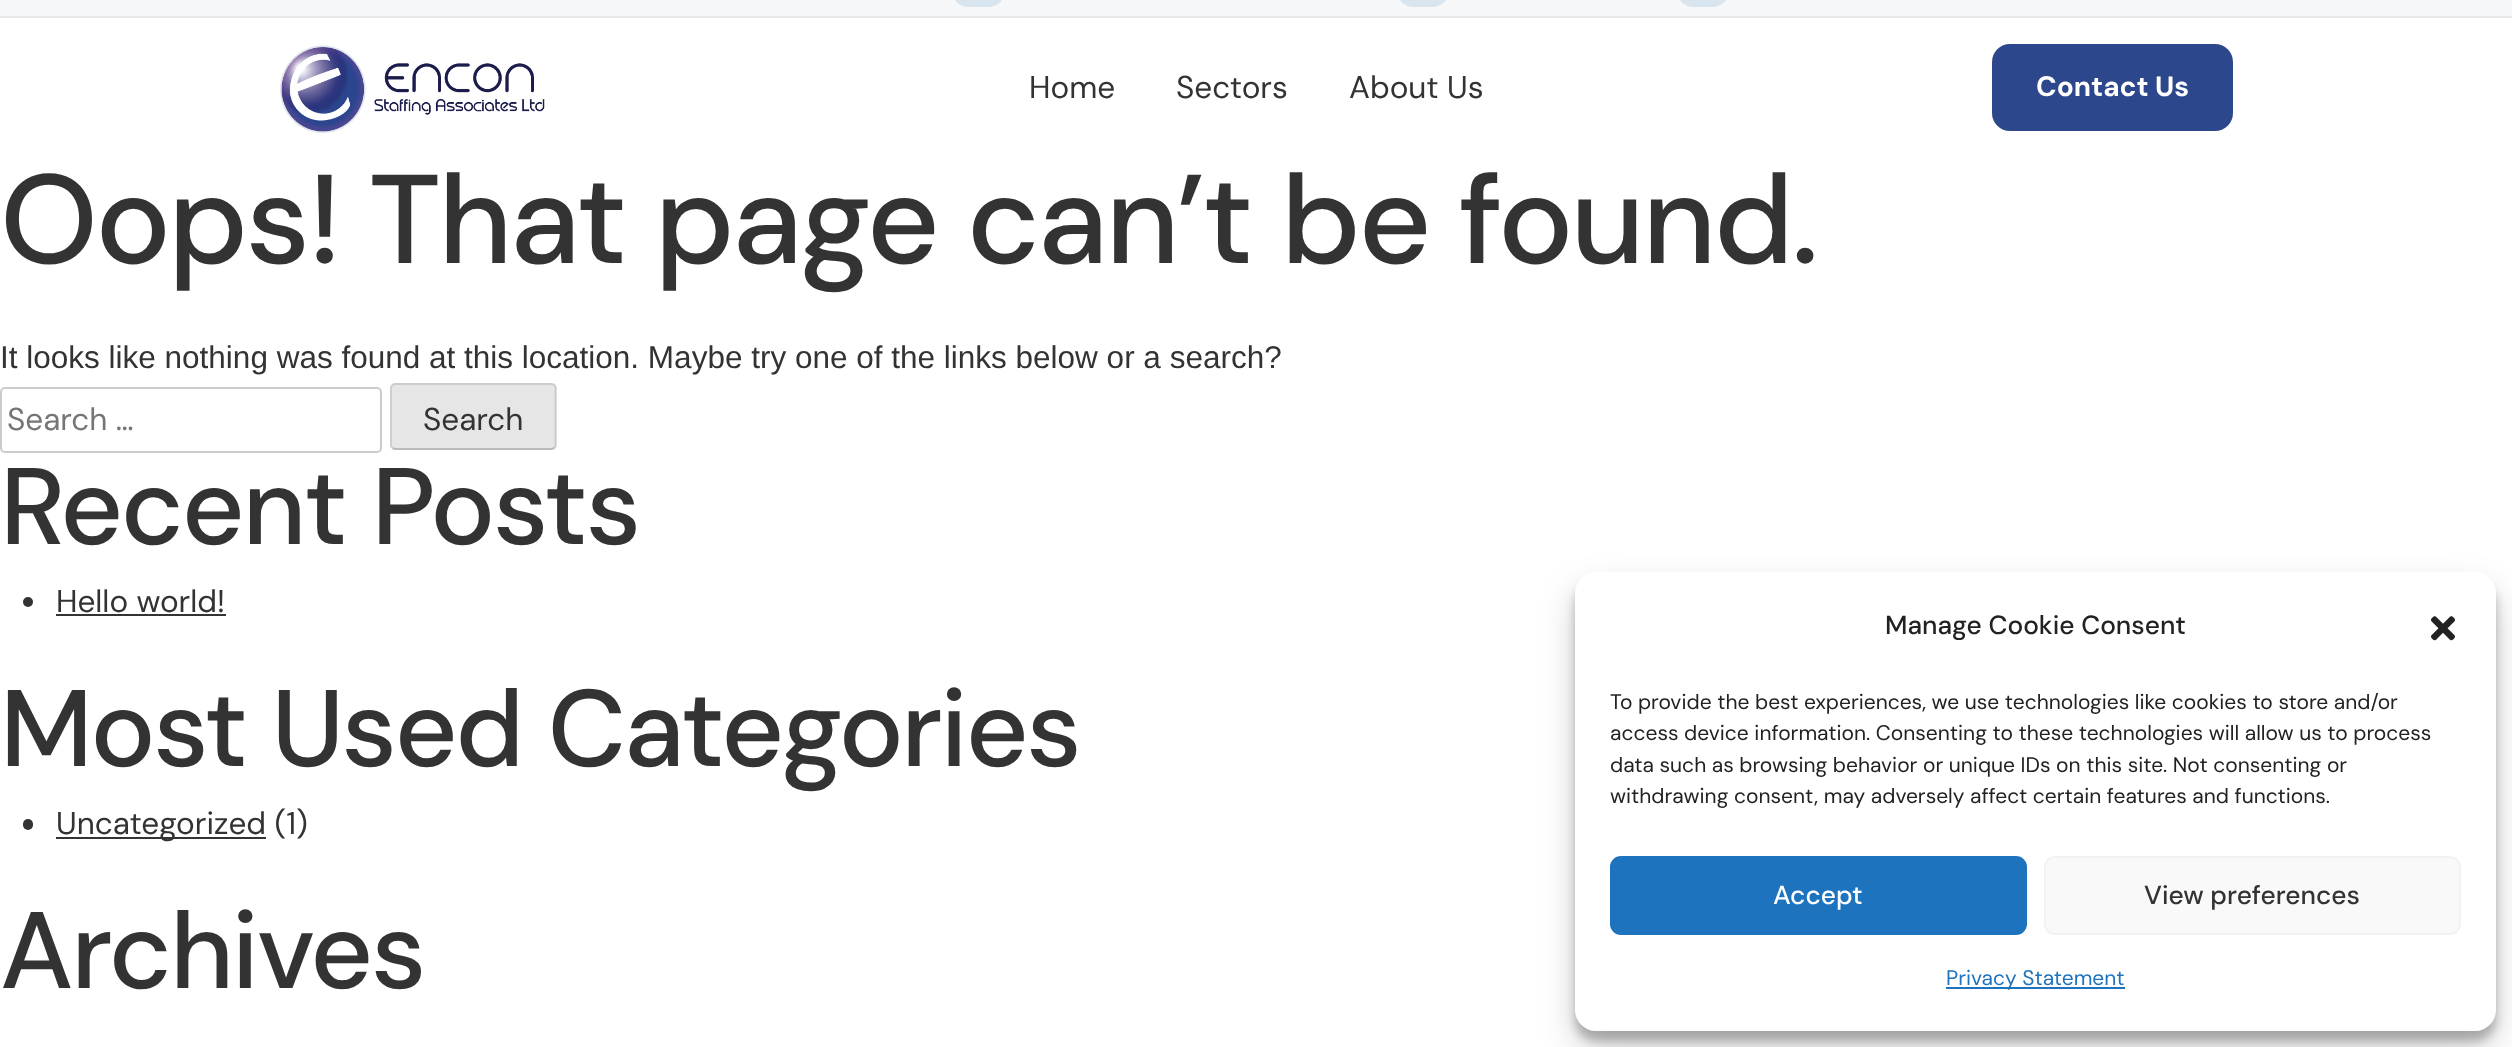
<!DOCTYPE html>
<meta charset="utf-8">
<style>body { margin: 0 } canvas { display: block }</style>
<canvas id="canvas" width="2512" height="1047"></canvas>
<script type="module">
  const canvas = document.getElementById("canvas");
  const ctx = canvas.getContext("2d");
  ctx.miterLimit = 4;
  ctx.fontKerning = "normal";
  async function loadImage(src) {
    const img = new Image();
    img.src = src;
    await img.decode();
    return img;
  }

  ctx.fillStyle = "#ffffff";
  ctx.fillRect(0, 0, 2512, 1047);
  ctx.fillStyle = "#f6f7f9";
  ctx.fillRect(0, 0, 2512, 16);
  ctx.fillStyle = "#e8e8e8";
  ctx.fillRect(0, 16, 2512, 2);
  ctx.fillStyle = "#d8e5ef";
  ctx.beginPath();
  ctx.roundRect(952, -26, 53, 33, 26);
  ctx.fill();
  ctx.beginPath();
  ctx.roundRect(1397, -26, 52, 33, 26);
  ctx.fill();
  ctx.beginPath();
  ctx.roundRect(1677, -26, 52, 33, 26);
  ctx.fill();
  ctx.drawImage(await loadImage("img1.png"), 280, 45, 265, 88);
  ctx.font = "31.5px DM Sans";
  ctx.fillStyle = "#333333";
  ctx.fillText("Home", 1029, 98);
  ctx.fillText("Sectors", 1176, 98);
  ctx.fillText("About Us", 1349, 98);
  ctx.fillStyle = "#2d478c";
  ctx.beginPath();
  ctx.roundRect(1992, 44, 241, 87, 18);
  ctx.fill();
  ctx.font = "bold 28px DM Sans";
  ctx.fillStyle = "#ffffff";
  ctx.fillText("Contact Us", 2036, 96);
  ctx.letterSpacing = "-2.5px";
  ctx.font = "500 126px DM Sans";
  ctx.fillStyle = "#333333";
  ctx.fillText("Oops! That page can’t be found.", 0, 263);
  ctx.letterSpacing = "0px";
  ctx.font = "31.5px Liberation Sans";
  ctx.fillText("It looks like nothing was found at this location. Maybe try one of the links below or a search?", 0, 368);
  ctx.beginPath();
  ctx.roundRect(1, 388, 380, 64, 4);
  ctx.strokeStyle = "#cccccc";
  ctx.lineWidth = 2;
  ctx.stroke();
  ctx.font = "31.5px DM Sans";
  ctx.fillStyle = "#757575";
  ctx.fillText("Search …", 7, 430);
  ctx.fillStyle = "#e6e6e6";
  ctx.beginPath();
  ctx.roundRect(390, 383, 167, 67, 5);
  ctx.fill();
  ctx.beginPath();
  ctx.moveTo(554.5, 447.5);
  ctx.bezierCurveTo(553.5, 448.5, 552.5, 449, 551, 449);
  ctx.lineTo(395.5, 449);
  ctx.bezierCurveTo(394.5, 449, 393, 448.5, 392.5, 447.5);
  ctx.strokeStyle = "#bbbbbb";
  ctx.lineWidth = 1.8;
  ctx.stroke();
  ctx.beginPath();
  ctx.moveTo(392.5, 447.5);
  ctx.bezierCurveTo(391.5, 447, 391, 445.5, 391, 444.5);
  ctx.lineTo(391, 388.5);
  ctx.bezierCurveTo(391, 387.5, 391.5, 386, 392.5, 385.5);
  ctx.bezierCurveTo(393, 384.5, 394.5, 384, 395.5, 384);
  ctx.lineTo(551, 384);
  ctx.bezierCurveTo(552.5, 384, 553.5, 384.5, 554.5, 385.5);
  ctx.bezierCurveTo(555, 386, 555.5, 387.5, 555.5, 388.5);
  ctx.lineTo(555.5, 444.5);
  ctx.bezierCurveTo(555.5, 445.5, 555, 447, 554.5, 447.5);
  ctx.strokeStyle = "#cccccc";
  ctx.stroke();
  ctx.fillStyle = "#333333";
  ctx.fillText("Search", 423, 430);
  ctx.letterSpacing = "-2.2px";
  ctx.font = "500 108.5px DM Sans";
  ctx.fillText("Recent Posts", 0, 544);
  ctx.beginPath();
  ctx.arc(28, 602, 5, 0, Math.PI * 2);
  ctx.fill();
  ctx.letterSpacing = "0px";
  ctx.font = "31.5px DM Sans";
  ctx.fillText("Hello world!", 56, 612);
  ctx.fillRect(56, 614, 170, 2);
  ctx.letterSpacing = "-2.2px";
  ctx.font = "500 108.5px DM Sans";
  ctx.fillText("Most Used Categories", 0, 766);
  ctx.beginPath();
  ctx.roundRect(23, 819, 10, 11, 5);
  ctx.fill();
  ctx.fillRect(56, 837, 210, 2);
  ctx.letterSpacing = "0px";
  ctx.font = "31.5px DM Sans";
  ctx.fillText("Uncategorized (1)", 56, 834);
  ctx.letterSpacing = "-2.2px";
  ctx.font = "500 108.5px DM Sans";
  ctx.fillText("Archives", 0, 988);
  ctx.fillStyle = "rgba(0, 0, 0, 0.23)";
  ctx.filter = "blur(5px)";
  ctx.beginPath();
  ctx.roundRect(1575, 583, 921, 458, 21);
  ctx.fill();
  ctx.filter = "none";
  ctx.fillStyle = "rgba(0, 0, 0, 0.19)";
  ctx.filter = "blur(17.5px)";
  ctx.beginPath();
  ctx.roundRect(1575, 590, 921, 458, 21);
  ctx.fill();
  ctx.filter = "none";
  ctx.fillStyle = "#ffffff";
  ctx.beginPath();
  ctx.roundRect(1575, 572, 921, 459, 21);
  ctx.fill();
  ctx.letterSpacing = "0px";
  ctx.font = "500 26.25px DM Sans";
  ctx.fillStyle = "#222222";
  ctx.fillText("Manage Cookie Consent", 1885, 634);
  ctx.drawImage(await loadImage("img2.png"), 2431, 616, 24, 25);
  ctx.font = "21px DM Sans";
  ctx.fillText("To provide the best experiences, we use technologies like cookies to store and/or", 1610, 709);
  ctx.fillText("access device information. Consenting to these technologies will allow us to process", 1610, 740);
  ctx.fillText("data such as browsing behavior or unique IDs on this site. Not consenting or", 1610, 772);
  ctx.fillText("withdrawing consent, may adversely affect certain features and functions.", 1610, 803);
  ctx.fillStyle = "#1e73be";
  ctx.beginPath();
  ctx.roundRect(1611, 857, 415, 77, 10);
  ctx.fill();
  ctx.strokeStyle = "#1e73be";
  ctx.lineWidth = 2;
  ctx.stroke();
  ctx.font = "500 26.25px DM Sans";
  ctx.fillStyle = "#ffffff";
  ctx.fillText("Accept", 1773, 904);
  ctx.fillStyle = "#f9f9f9";
  ctx.beginPath();
  ctx.roundRect(2045, 857, 415, 77, 10);
  ctx.fill();
  ctx.strokeStyle = "#f2f2f2";
  ctx.stroke();
  ctx.fillStyle = "#333333";
  ctx.fillText("View preferences", 2144, 904);
  ctx.fillStyle = "#1e73be";
  ctx.fillRect(1946, 987, 179, 2);
  ctx.font = "21px DM Sans";
  ctx.fillText("Privacy Statement", 1946, 985);
</script>
